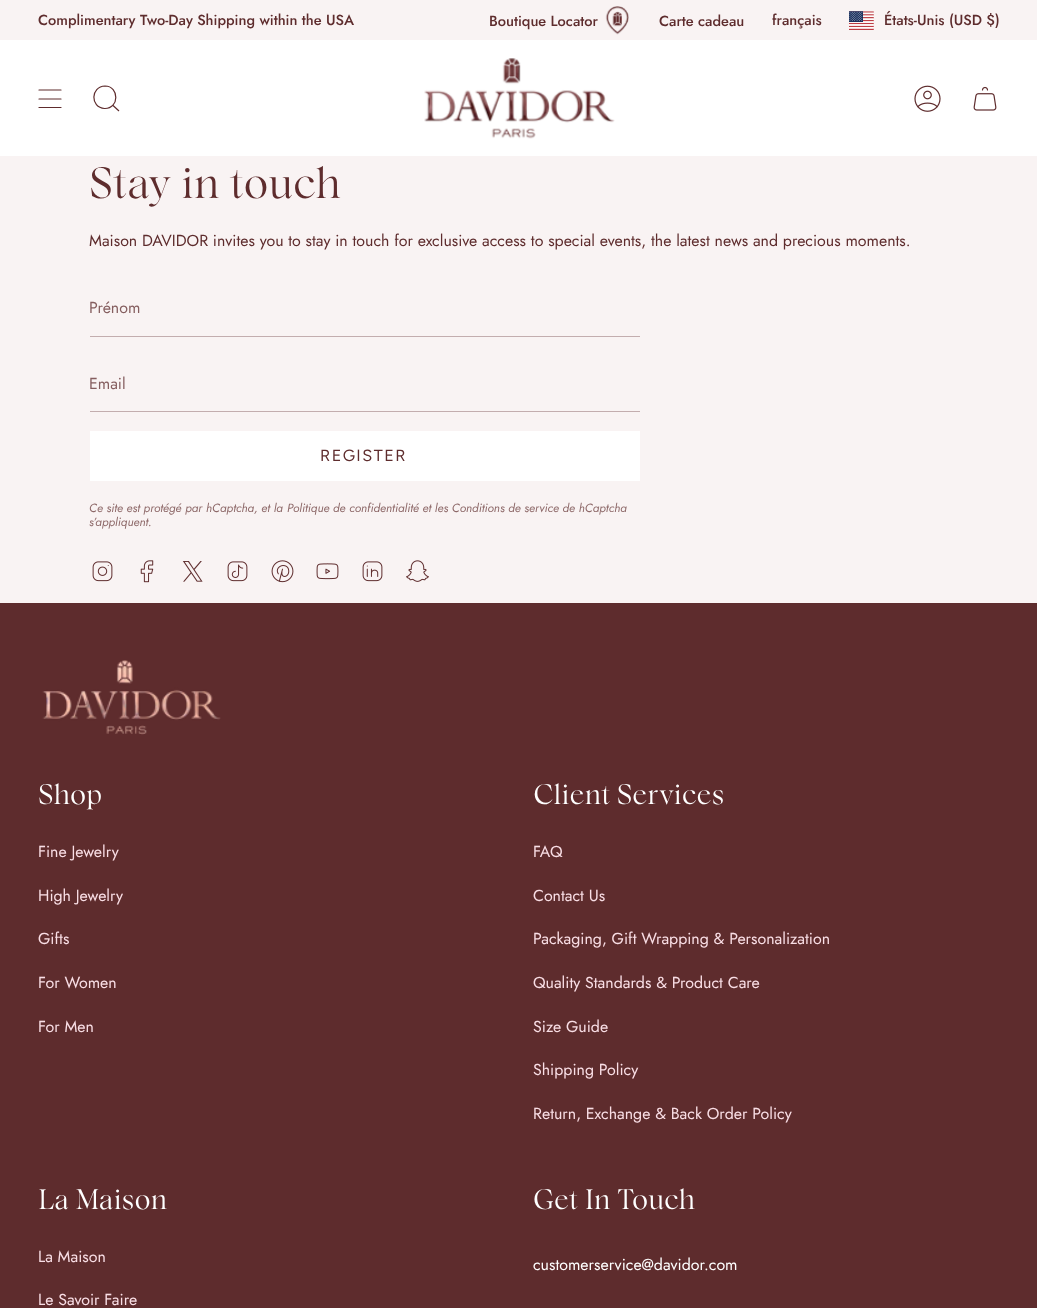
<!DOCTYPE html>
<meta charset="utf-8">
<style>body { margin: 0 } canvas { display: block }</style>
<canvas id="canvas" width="1037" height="1308"></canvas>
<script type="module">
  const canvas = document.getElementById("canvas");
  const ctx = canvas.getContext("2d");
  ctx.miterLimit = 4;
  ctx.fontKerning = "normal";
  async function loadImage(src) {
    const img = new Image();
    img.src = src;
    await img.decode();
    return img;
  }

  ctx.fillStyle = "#f9f3f3";
  ctx.fillRect(0, 0, 1037, 1308);
  ctx.font = "500 14.6px Jost";
  ctx.fillStyle = "#5e2c2d";
  ctx.fillText("Complimentary Two-Day Shipping within the USA", 38, 25);
  ctx.fillText("Boutique Locator", 489, 26);
  ctx.drawImage(await loadImage("img1.png"), 605, 6, 24, 29);
  ctx.fillText("Carte cadeau", 659, 26);
  ctx.fillText("français", 772, 25);
  ctx.drawImage(await loadImage("img2.png"), 849, 11, 25, 19);
  ctx.fillText("États-Unis (USD $)", 884, 25);
  ctx.fillStyle = "#ffffff";
  ctx.fillRect(0, 40, 1037, 116);
  ctx.beginPath();
  ctx.moveTo(39, 90);
  ctx.lineTo(61, 90);
  ctx.moveTo(39, 99);
  ctx.lineTo(61, 99);
  ctx.moveTo(39, 107.5);
  ctx.lineTo(61, 107.5);
  ctx.strokeStyle = "#5e2c2d";
  ctx.lineWidth = 1.2;
  ctx.lineCap = "round";
  ctx.lineJoin = "round";
  ctx.stroke();
  ctx.beginPath();
  ctx.moveTo(105, 86);
  ctx.bezierCurveTo(119.5, 86, 119.5, 109, 104.5, 108.5);
  ctx.bezierCurveTo(90, 107.5, 90.5, 86.5, 105, 86);
  ctx.closePath();
  ctx.moveTo(112.5, 105);
  ctx.lineTo(119, 111);
  ctx.lineCap = "butt";
  ctx.lineJoin = "miter";
  ctx.stroke();
  ctx.drawImage(await loadImage("img3.png"), 424, 58, 191, 81);
  ctx.drawImage(await loadImage("img4.png"), 914, 85, 27, 27);
  ctx.drawImage(await loadImage("img5.png"), 973, 86, 24, 25);
  ctx.font = "41.75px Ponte";
  ctx.fillStyle = "#5e2c2d";
  ctx.fillText("Stay in touch", 89, 198);
  ctx.font = "15.95px Jost";
  ctx.fillText("Maison DAVIDOR invites you to stay in touch for exclusive access to special events, the latest news and precious moments.", 89, 246);
  ctx.fillStyle = "#c3adae";
  ctx.fillRect(90, 336, 550, 1);
  ctx.fillStyle = "#855e5f";
  ctx.fillText("Prénom", 89, 313);
  ctx.fillStyle = "#c3adae";
  ctx.fillRect(90, 411, 550, 1);
  ctx.fillStyle = "#855e5f";
  ctx.fillText("Email", 89, 389);
  ctx.fillStyle = "#ffffff";
  ctx.fillRect(90, 431, 550, 50);
  ctx.letterSpacing = "1.5px";
  ctx.font = "16.25px Figtree";
  ctx.fillStyle = "#5e2c2d";
  ctx.fillText("REGISTER", 320, 461);
  ctx.letterSpacing = "0px";
  ctx.font = "italic 11.95px Jost";
  ctx.fillStyle = "#8d6868";
  ctx.fillText("Ce site est protégé par hCaptcha, et la", 89, 512);
  ctx.fillText("Politique de confidentialité et les Conditions de service de hCaptcha", 287, 512);
  ctx.fillText("s’appliquent.", 89, 526);
  ctx.drawImage(await loadImage("img6.png"), 92, 561, 21, 21);
  ctx.drawImage(await loadImage("img7.png"), 140, 560, 14, 23);
  ctx.drawImage(await loadImage("img8.png"), 182, 561, 21, 21);
  ctx.drawImage(await loadImage("img9.png"), 227, 561, 21, 21);
  ctx.drawImage(await loadImage("img10.png"), 271, 560, 23, 23);
  ctx.drawImage(await loadImage("img11.png"), 316, 563, 23, 17);
  ctx.drawImage(await loadImage("img12.png"), 362, 561, 21, 21);
  ctx.drawImage(await loadImage("img13.png"), 406, 560, 23, 22);
  ctx.fillStyle = "#5e2c2d";
  ctx.fillRect(0, 603, 1037, 705);
  ctx.drawImage(await loadImage("img14.png"), 42, 660, 179, 75);
  ctx.font = "27px Ponte";
  ctx.fillStyle = "#ffffff";
  ctx.fillText("Shop", 38, 804);
  ctx.font = "15.95px Jost";
  ctx.fillStyle = "#f9dee5";
  ctx.fillText("Fine Jewelry", 38, 857);
  ctx.fillText("High Jewelry", 38, 901);
  ctx.fillText("Gifts", 38, 944);
  ctx.fillText("For Women", 38, 988);
  ctx.fillText("For Men", 38, 1032);
  ctx.font = "27px Ponte";
  ctx.fillStyle = "#ffffff";
  ctx.fillText("Client Services", 533, 804);
  ctx.font = "15.95px Jost";
  ctx.fillStyle = "#f9dee5";
  ctx.fillText("FAQ", 533, 857);
  ctx.fillText("Contact Us", 533, 901);
  ctx.fillText("Packaging, Gift Wrapping & Personalization", 533, 944);
  ctx.fillText("Quality Standards & Product Care", 533, 988);
  ctx.fillText("Size Guide", 533, 1032);
  ctx.fillText("Shipping Policy", 533, 1075);
  ctx.fillText("Return, Exchange & Back Order Policy", 533, 1119);
  ctx.font = "27px Ponte";
  ctx.fillStyle = "#ffffff";
  ctx.fillText("La Maison", 38, 1209);
  ctx.font = "15.95px Jost";
  ctx.fillStyle = "#f9dee5";
  ctx.fillText("La Maison", 38, 1262);
  ctx.fillText("Le Savoir Faire", 38, 1305);
  ctx.font = "27px Ponte";
  ctx.fillStyle = "#ffffff";
  ctx.fillText("Get In Touch", 533, 1209);
  ctx.font = "15.95px Jost";
  ctx.fillText("customerservice@davidor.com", 533, 1270);
</script>
